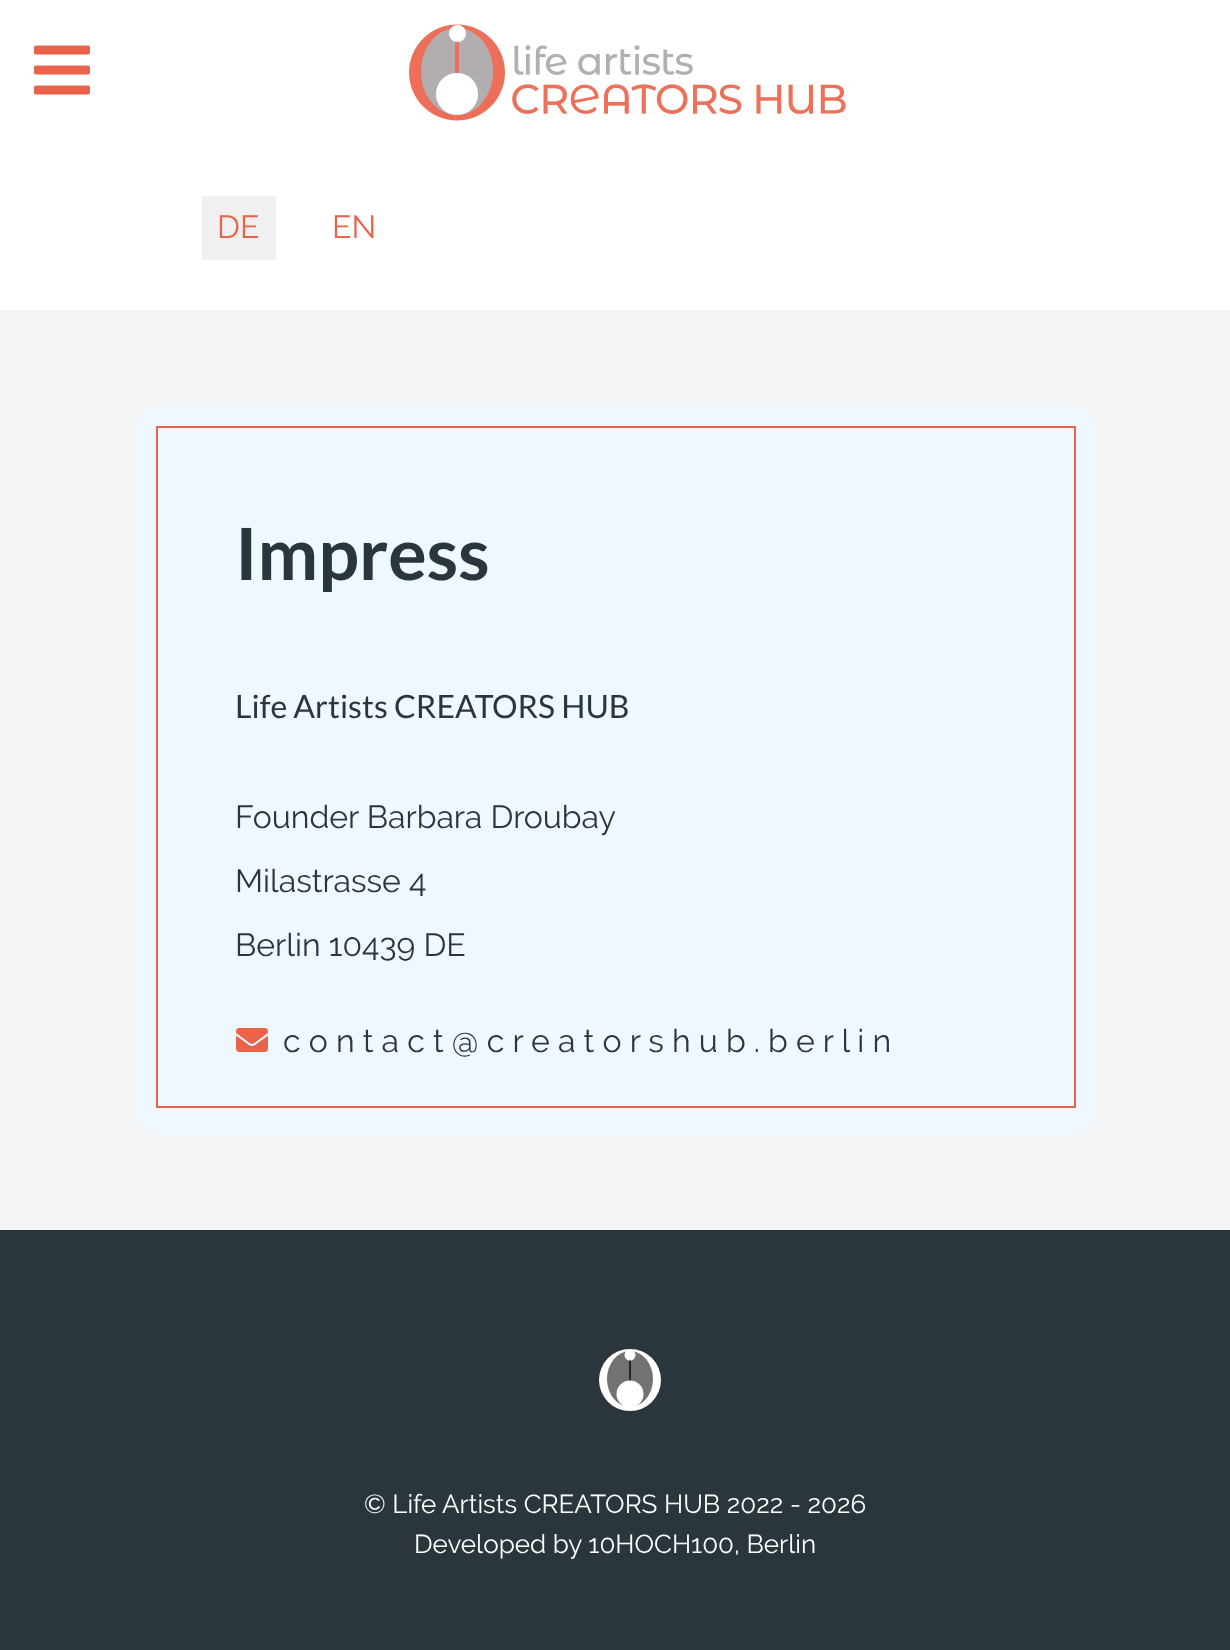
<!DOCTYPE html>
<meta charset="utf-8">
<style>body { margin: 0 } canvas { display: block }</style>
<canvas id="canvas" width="1230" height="1650"></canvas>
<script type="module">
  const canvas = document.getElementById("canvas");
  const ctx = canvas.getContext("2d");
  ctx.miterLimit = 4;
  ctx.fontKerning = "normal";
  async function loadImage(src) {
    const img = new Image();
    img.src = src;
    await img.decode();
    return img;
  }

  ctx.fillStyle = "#ffffff";
  ctx.fillRect(0, 0, 1230, 1650);
  ctx.drawImage(await loadImage("img1.png"), 34, 45, 56, 50);
  ctx.drawImage(await loadImage("img2.png"), 409, 24, 437, 97);
  ctx.fillStyle = "#f0f0f0";
  ctx.fillRect(202, 196, 74, 64);
  ctx.font = "32px Raleway";
  ctx.fillStyle = "#e86348";
  ctx.fillText("DE", 217, 238);
  ctx.fillText("EN", 332, 238);
  ctx.fillStyle = "#f4f5f7";
  ctx.fillRect(0, 310, 1230, 920);
  ctx.fillStyle = "#f0f8ff";
  ctx.beginPath();
  ctx.roundRect(136, 406, 960, 728, 24);
  ctx.fill();
  ctx.strokeStyle = "#e86348";
  ctx.lineWidth = 2;
  ctx.strokeRect(157, 427, 918, 680);
  ctx.font = "bold 72px Lato";
  ctx.fillStyle = "#2a363b";
  ctx.fillText("Impress", 235, 580);
  ctx.font = "32px Lato";
  ctx.fillText("Life Artists CREATORS HUB", 235, 718);
  ctx.font = "32px Raleway";
  ctx.fillText("Founder Barbara Droubay", 235, 828);
  ctx.fillText("Milastrasse 4", 235, 892);
  ctx.fillText("Berlin 10439 DE", 235, 956);
  ctx.drawImage(await loadImage("img3.png"), 236, 1028, 32, 24);
  ctx.fillText("c o n t a c t @ c r e a t o r s h u b . b e r l i n", 283, 1052);
  ctx.fillRect(0, 1230, 1230, 420);
  ctx.fillStyle = "#ffffff";
  ctx.beginPath();
  ctx.arc(630, 1380, 31, 0, Math.PI * 2);
  ctx.fill();
  ctx.fillStyle = "#727272";
  ctx.beginPath();
  ctx.ellipse(630, 1379, 23, 28, 0, 0, Math.PI * 2);
  ctx.fill();
  ctx.fillStyle = "#262524";
  ctx.fillRect(629, 1360, 2, 21);
  ctx.fillStyle = "#ffffff";
  ctx.beginPath();
  ctx.arc(630, 1394, 13.5, 0, Math.PI * 2);
  ctx.fill();
  ctx.beginPath();
  ctx.arc(630, 1355, 5.5, 0, Math.PI * 2);
  ctx.fill();
  ctx.font = "26px Raleway";
  ctx.fillText("© Life Artists CREATORS HUB 2022 - 2026", 364, 1513);
  ctx.fillText("Developed by 10HOCH100, Berlin", 414, 1553);
</script>
